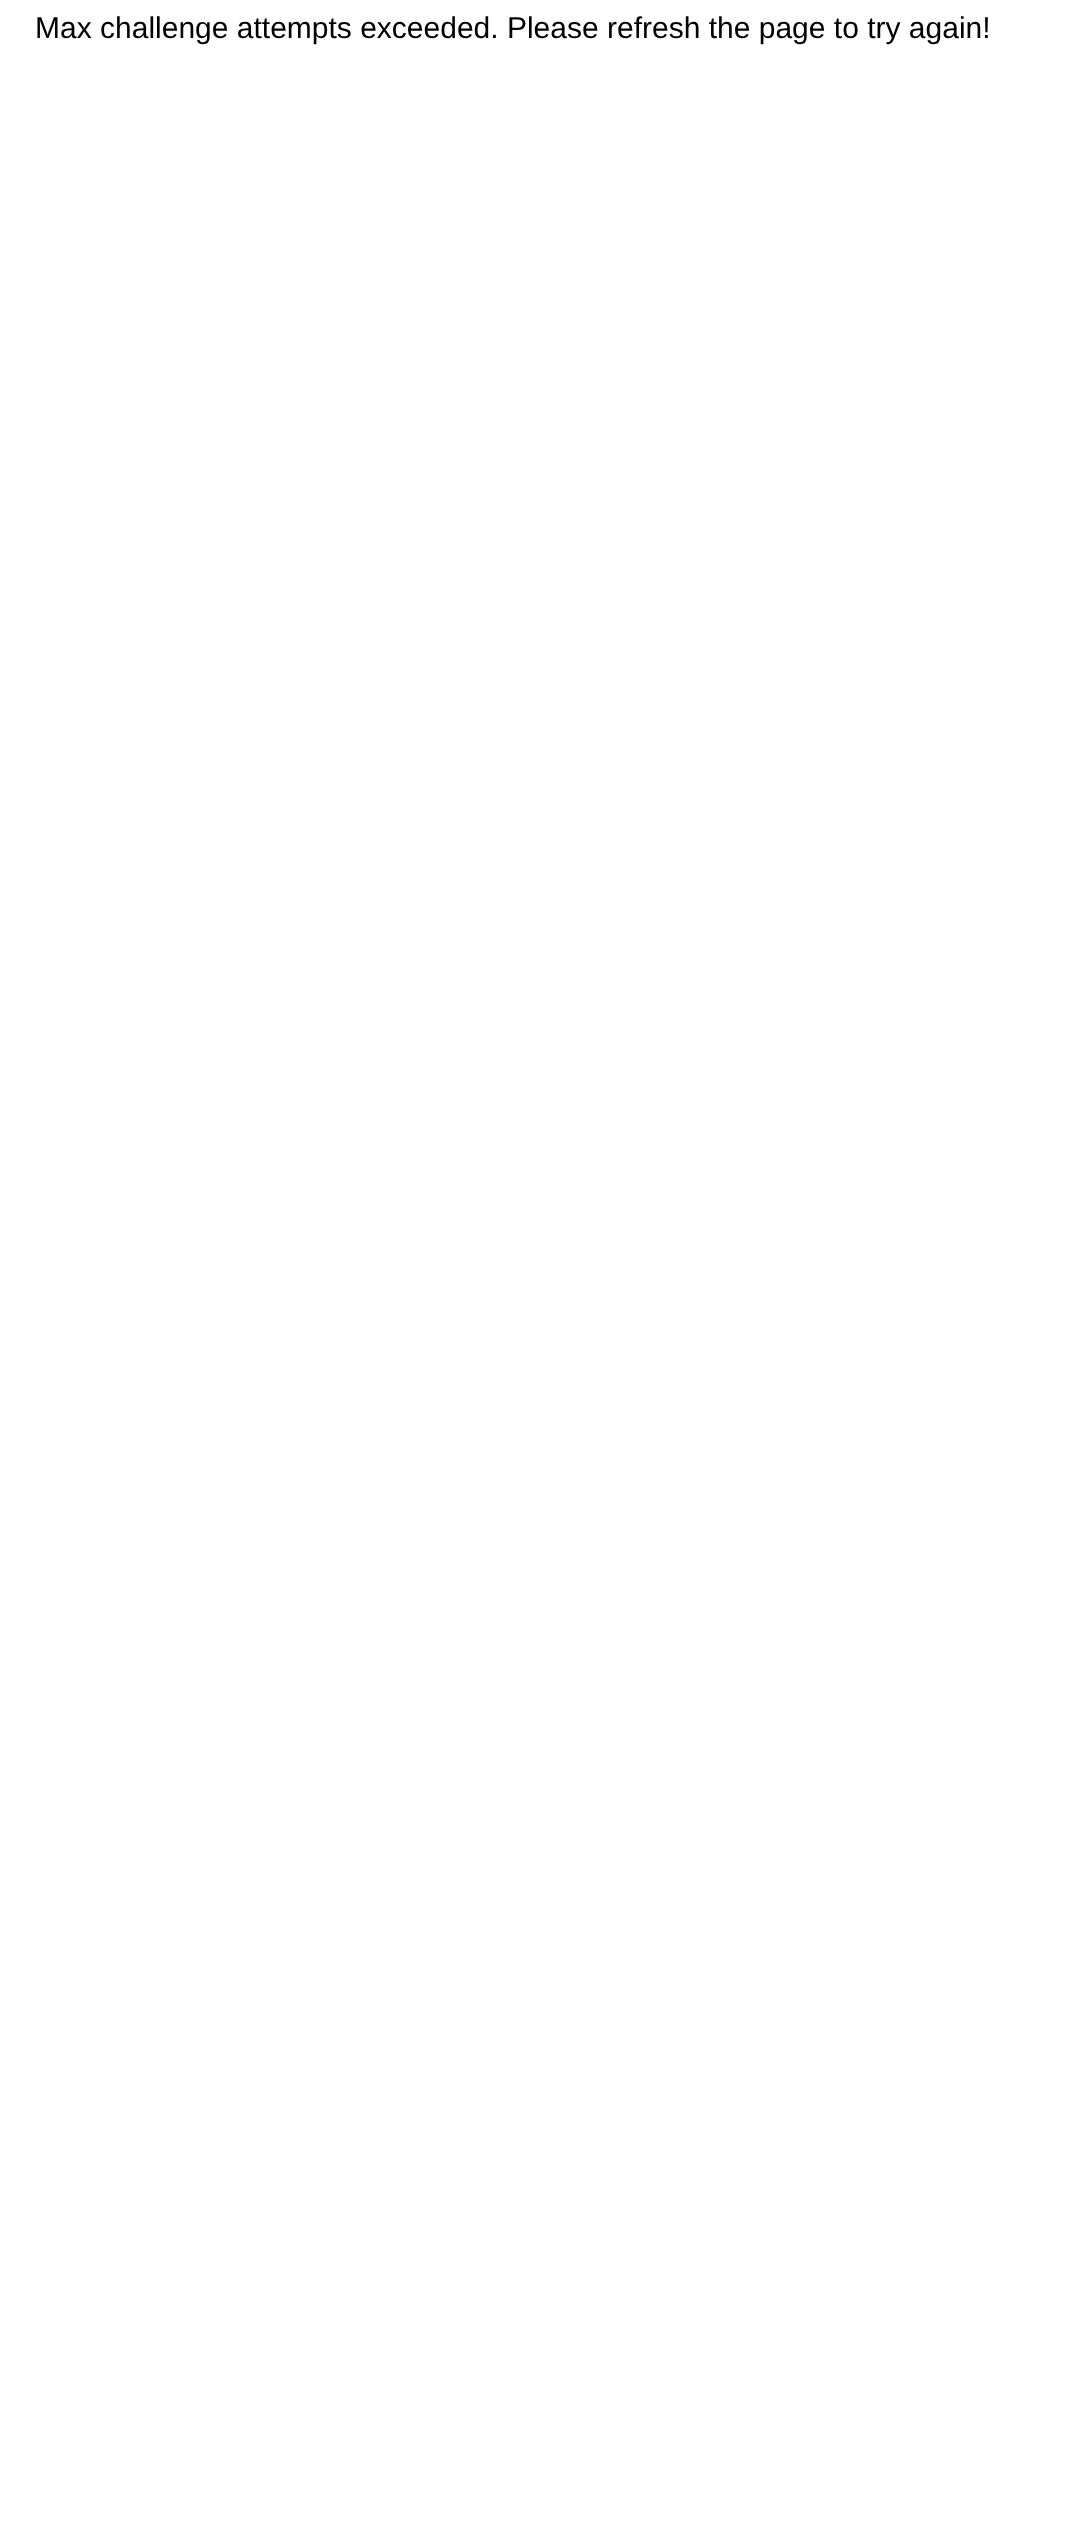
<!DOCTYPE html>
<meta charset="utf-8">
<style>body { margin: 0 } canvas { display: block }</style>
<canvas id="canvas" width="1079" height="2540"></canvas>
<script type="module">
  const canvas = document.getElementById("canvas");
  const ctx = canvas.getContext("2d");
  ctx.miterLimit = 4;
  ctx.fontKerning = "normal";

  ctx.fillStyle = "#ffffff";
  ctx.fillRect(0, 0, 1079, 2540);
  ctx.font = "30px Liberation Sans";
  ctx.fillStyle = "#000000";
  ctx.fillText("Max challenge attempts exceeded. Please refresh the page to try again!", 35, 38);
</script>
